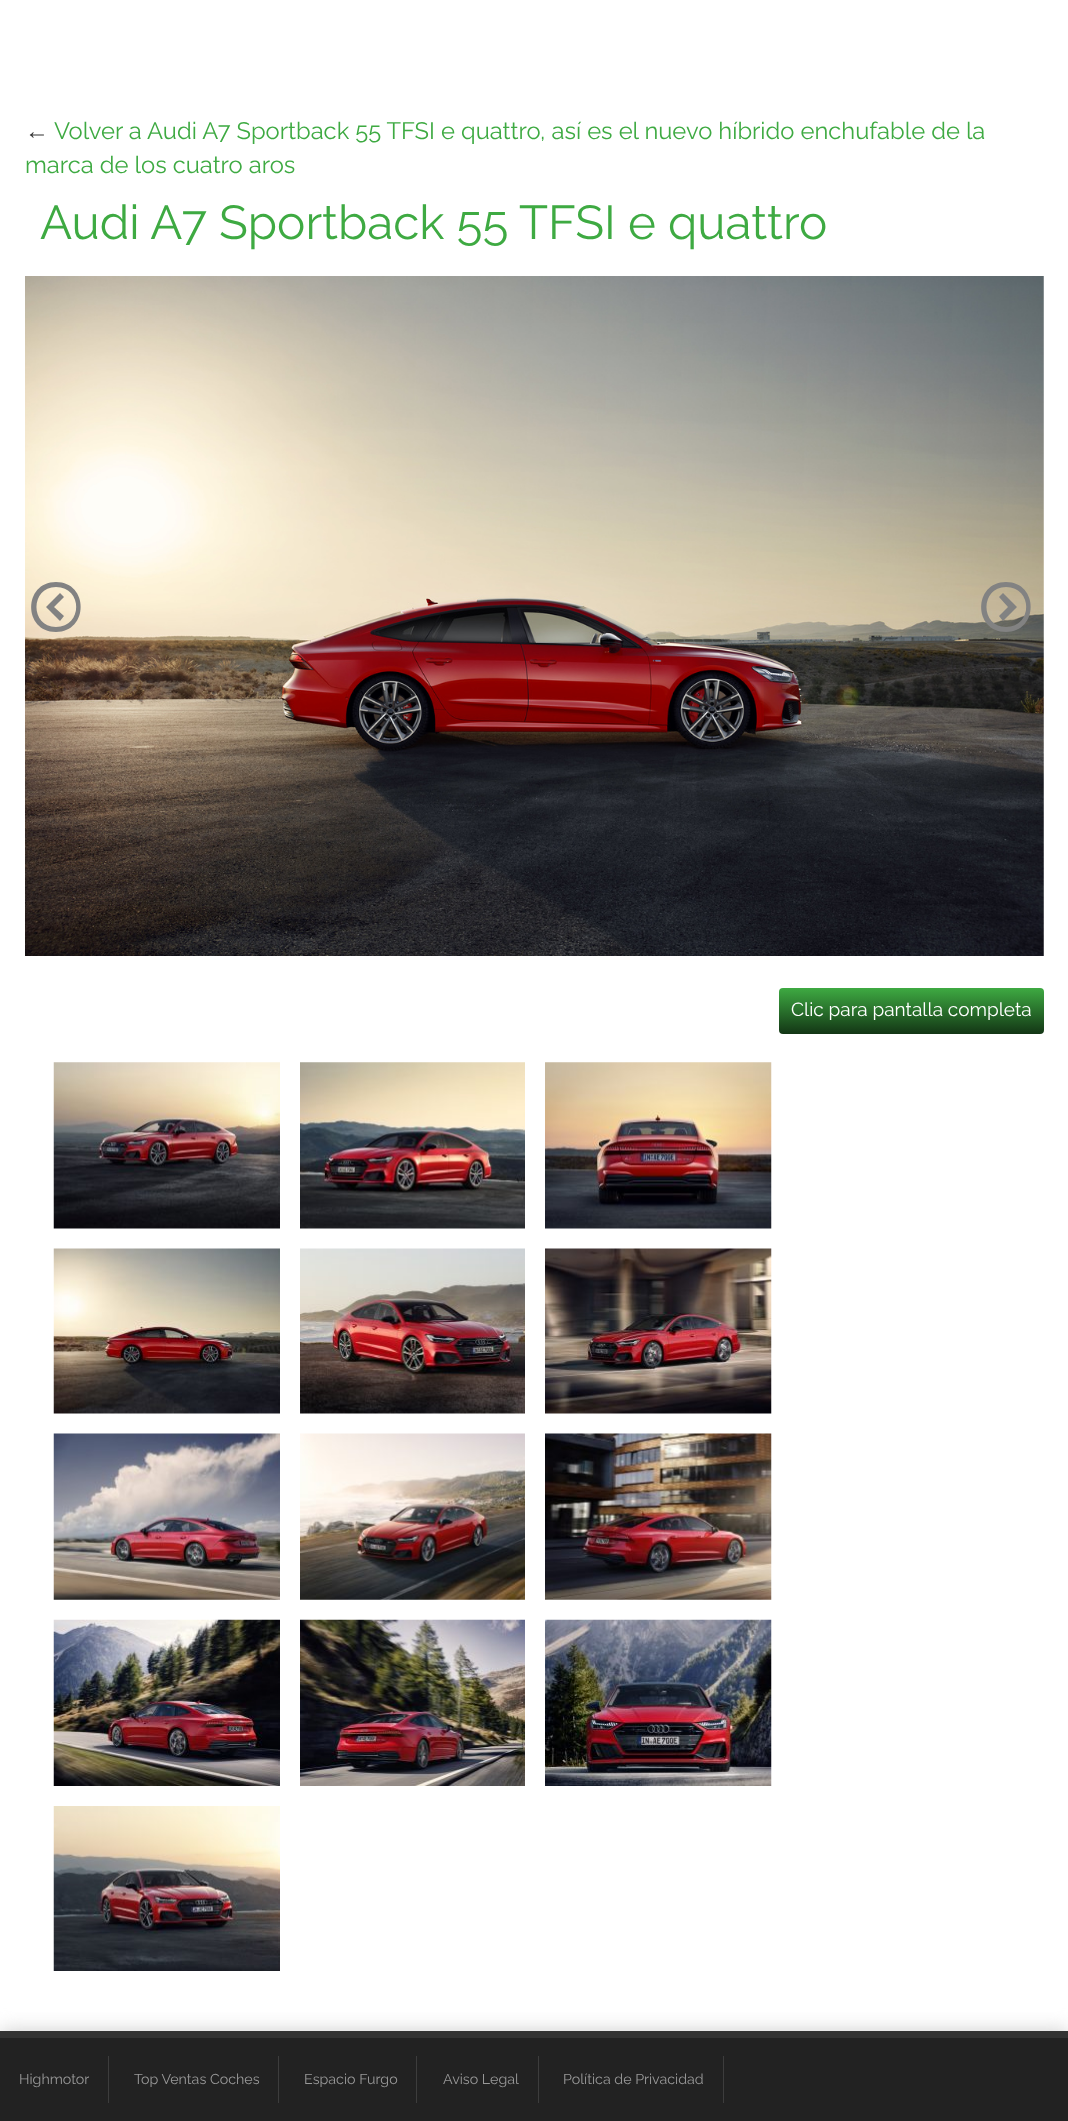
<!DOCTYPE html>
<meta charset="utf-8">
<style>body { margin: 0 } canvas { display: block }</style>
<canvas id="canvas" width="1068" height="2121"></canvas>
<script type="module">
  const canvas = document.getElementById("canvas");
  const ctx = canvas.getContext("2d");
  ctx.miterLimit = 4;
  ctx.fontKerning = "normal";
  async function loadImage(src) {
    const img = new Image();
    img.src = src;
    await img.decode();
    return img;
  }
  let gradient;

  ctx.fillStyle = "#ffffff";
  ctx.fillRect(0, 0, 1068, 2121);
  ctx.font = "23.75px Liberation Sans";
  ctx.fillStyle = "#333333";
  ctx.fillText("←", 25, 139);
  ctx.font = "23.75px Raleway";
  ctx.fillStyle = "#3eaa42";
  ctx.fillText("Volver a Audi A7 Sportback 55 TFSI e quattro, así es el nuevo híbrido enchufable de la", 54, 139);
  ctx.fillText("marca de los cuatro aros", 25, 173);
  ctx.font = "47.5px Raleway";
  ctx.fillText("Audi A7 Sportback 55 TFSI e quattro", 40, 239);
  ctx.drawImage(await loadImage("img1.png"), 25, 276, 1019, 680);
  ctx.fillStyle = "#828282";
  ctx.beginPath();
  ctx.moveTo(56, 632);
  ctx.bezierCurveTo(89, 632, 89, 582, 56, 582);
  ctx.bezierCurveTo(23, 582, 23, 632, 56, 632);
  ctx.closePath();
  ctx.moveTo(56, 587);
  ctx.bezierCurveTo(83, 587, 83, 627, 56, 627);
  ctx.bezierCurveTo(30, 627, 30, 587, 56, 587);
  ctx.closePath();
  ctx.moveTo(64, 597);
  ctx.lineTo(60, 593);
  ctx.lineTo(46, 607);
  ctx.lineTo(60, 621);
  ctx.lineTo(64, 616);
  ctx.lineTo(54, 607);
  ctx.closePath();
  ctx.fill();
  ctx.beginPath();
  ctx.moveTo(1006, 582);
  ctx.bezierCurveTo(973, 582, 973, 632, 1006, 632);
  ctx.bezierCurveTo(1039, 632, 1039, 582, 1006, 582);
  ctx.closePath();
  ctx.moveTo(1006, 627);
  ctx.bezierCurveTo(980, 627, 980, 587, 1006, 587);
  ctx.bezierCurveTo(1033, 587, 1033, 627, 1006, 627);
  ctx.closePath();
  ctx.moveTo(999, 616);
  ctx.lineTo(1003, 621);
  ctx.lineTo(1017, 607);
  ctx.lineTo(1003, 593);
  ctx.lineTo(999, 597);
  ctx.lineTo(1008, 607);
  ctx.closePath();
  ctx.fill();
  gradient = ctx.createLinearGradient(911, 988, 911, 1034);
  gradient.addColorStop(0, "#3eaa42");
  gradient.addColorStop(1, "#133615");
  ctx.fillStyle = gradient;
  ctx.beginPath();
  ctx.roundRect(779, 988, 265, 46, 4);
  ctx.fill();
  ctx.font = "19px Raleway";
  ctx.fillStyle = "#ffffff";
  ctx.fillText("Clic para pantalla completa", 791, 1016);
  ctx.drawImage(await loadImage("img2.png"), 53, 1062, 227, 167);
  ctx.drawImage(await loadImage("img3.png"), 300, 1062, 225, 167);
  ctx.drawImage(await loadImage("img4.png"), 545, 1062, 227, 167);
  ctx.drawImage(await loadImage("img5.png"), 53, 1248, 227, 166);
  ctx.drawImage(await loadImage("img6.png"), 300, 1248, 225, 166);
  ctx.drawImage(await loadImage("img7.png"), 545, 1248, 227, 166);
  ctx.drawImage(await loadImage("img8.png"), 53, 1433, 227, 167);
  ctx.drawImage(await loadImage("img9.png"), 300, 1433, 225, 167);
  ctx.drawImage(await loadImage("img10.png"), 545, 1433, 227, 167);
  ctx.drawImage(await loadImage("img11.png"), 53, 1619, 227, 167);
  ctx.drawImage(await loadImage("img12.png"), 300, 1619, 225, 167);
  ctx.drawImage(await loadImage("img13.png"), 545, 1619, 227, 167);
  ctx.drawImage(await loadImage("img14.png"), 53, 1806, 227, 165);
  ctx.fillStyle = "#cccccc";
  ctx.filter = "blur(9.5px)";
  ctx.beginPath();
  ctx.rect(0, 2031, 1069, 90);
  ctx.fill();
  ctx.filter = "none";
  ctx.fillStyle = "#333333";
  ctx.fillRect(0, 2031, 1068, 7);
  ctx.fillStyle = "#222222";
  ctx.fillRect(0, 2038, 1068, 83);
  ctx.fillStyle = "#3d3d3d";
  ctx.fillRect(108, 2056, 1, 47);
  ctx.font = "14.25px Raleway";
  ctx.fillStyle = "#999999";
  ctx.fillText("Highmotor", 19, 2084);
  ctx.fillStyle = "#3d3d3d";
  ctx.fillRect(278, 2056, 1, 47);
  ctx.fillStyle = "#999999";
  ctx.fillText("Top Ventas Coches", 134, 2084);
  ctx.fillStyle = "#3d3d3d";
  ctx.fillRect(416, 2056, 1, 47);
  ctx.fillStyle = "#999999";
  ctx.fillText("Espacio Furgo", 304, 2084);
  ctx.fillStyle = "#3d3d3d";
  ctx.fillRect(538, 2056, 1, 47);
  ctx.fillStyle = "#999999";
  ctx.fillText("Aviso Legal", 443, 2084);
  ctx.fillStyle = "#3d3d3d";
  ctx.fillRect(723, 2056, 1, 47);
  ctx.fillStyle = "#999999";
  ctx.fillText("Política de Privacidad", 563, 2084);
</script>
